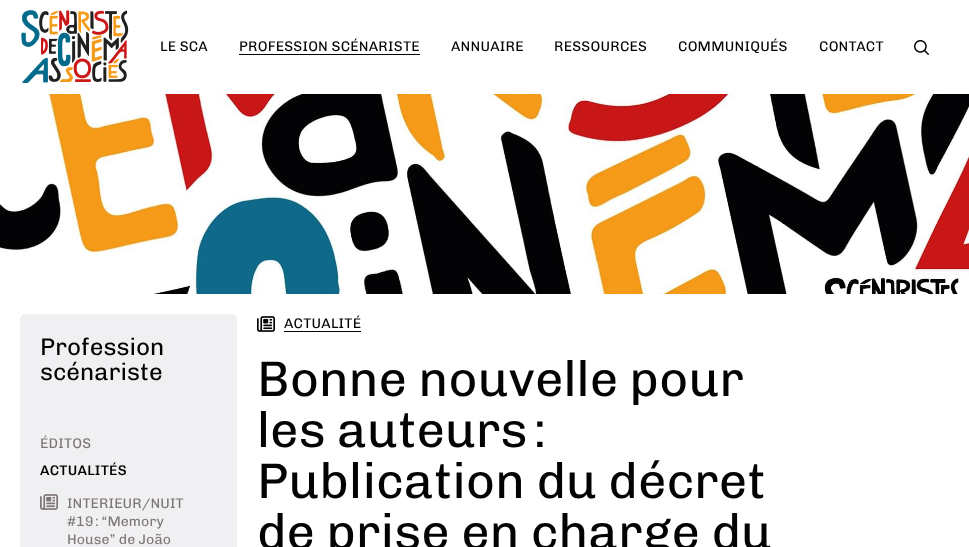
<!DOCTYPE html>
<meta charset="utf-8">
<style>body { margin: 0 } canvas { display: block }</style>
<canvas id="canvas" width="969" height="547"></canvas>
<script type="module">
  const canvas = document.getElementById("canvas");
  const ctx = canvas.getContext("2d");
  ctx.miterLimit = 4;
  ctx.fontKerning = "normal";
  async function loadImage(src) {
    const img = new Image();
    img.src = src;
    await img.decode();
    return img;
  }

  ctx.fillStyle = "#ffffff";
  ctx.fillRect(0, 0, 969, 547);
  ctx.drawImage(await loadImage("img1.png"), 21, 10, 108, 73);
  ctx.letterSpacing = "0.25px";
  ctx.font = "14px Chivo";
  ctx.fillStyle = "#030304";
  ctx.fillText("LE SCA", 160, 51);
  ctx.fillText("PROFESSION SCÉNARISTE", 239, 51);
  ctx.fillRect(239, 54, 181, 1);
  ctx.fillText("ANNUAIRE", 451, 51);
  ctx.fillText("RESSOURCES", 554, 51);
  ctx.fillText("COMMUNIQUÉS", 678, 51);
  ctx.fillText("CONTACT", 819, 51);
  ctx.drawImage(await loadImage("img2.png"), 914, 40, 15, 15);
  ctx.drawImage(await loadImage("img3.png"), 0, 94, 969, 200);
  ctx.fillStyle = "#f0f0f2";
  ctx.beginPath();
  ctx.roundRect(20, 314, 217, 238, 5);
  ctx.fill();
  ctx.letterSpacing = "0px";
  ctx.font = "24px Chivo";
  ctx.fillStyle = "#030304";
  ctx.fillText("Profession", 40, 355);
  ctx.fillText("scénariste", 40, 380);
  ctx.letterSpacing = "0.25px";
  ctx.font = "14px Chivo";
  ctx.fillStyle = "#7e7577";
  ctx.fillText("ÉDITOS", 40, 448);
  ctx.font = "500 14px Chivo";
  ctx.fillStyle = "#030304";
  ctx.fillText("ACTUALITÉS", 40, 475);
  ctx.drawImage(await loadImage("img4.png"), 40, 494, 18, 16);
  ctx.letterSpacing = "0.1px";
  ctx.font = "14px Chivo";
  ctx.fillStyle = "#7e7577";
  ctx.fillText("INTERIEUR/NUIT", 67, 508);
  ctx.fillText("#19 : “Memory", 67, 526);
  ctx.fillText("House” de João", 67, 544);
  ctx.drawImage(await loadImage("img5.png"), 257, 316, 18, 16);
  ctx.letterSpacing = "0.25px";
  ctx.fillStyle = "#030304";
  ctx.fillText("ACTUALITÉ", 284, 328);
  ctx.fillRect(284, 331, 77, 1);
  ctx.letterSpacing = "0px";
  ctx.font = "50px Chivo";
  ctx.fillText("Bonne nouvelle pour", 257, 396);
  ctx.fillText("les auteurs :", 257, 447);
  ctx.fillText("Publication du décret", 257, 498);
  ctx.fillText("de prise en charge du", 257, 549);
</script>
